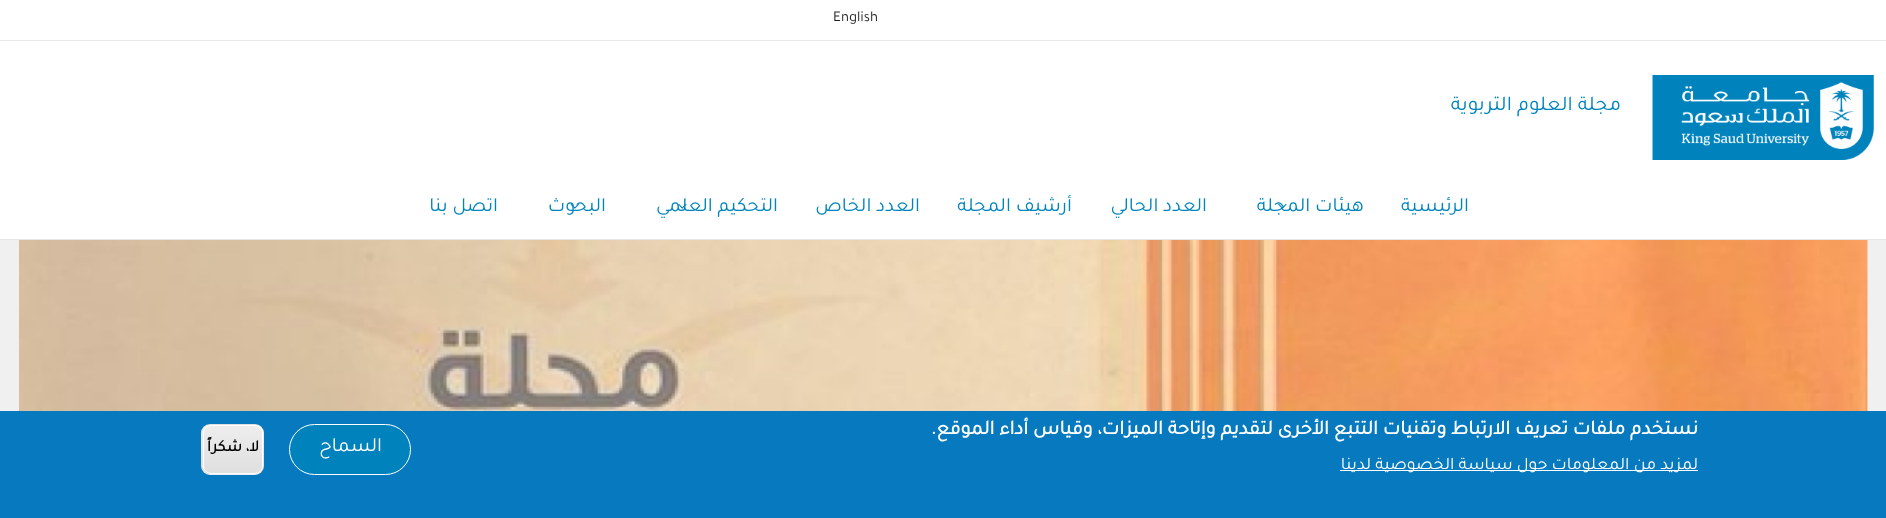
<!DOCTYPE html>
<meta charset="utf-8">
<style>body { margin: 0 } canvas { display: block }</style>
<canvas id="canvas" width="1886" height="518"></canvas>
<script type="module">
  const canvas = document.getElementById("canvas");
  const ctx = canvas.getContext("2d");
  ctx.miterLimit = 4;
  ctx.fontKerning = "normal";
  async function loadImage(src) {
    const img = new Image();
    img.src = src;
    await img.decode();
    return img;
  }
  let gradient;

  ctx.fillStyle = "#ffffff";
  ctx.fillRect(0, 0, 1886, 518);
  ctx.fillStyle = "#e6e6e6";
  ctx.fillRect(0, 239, 1886, 1);
  ctx.fillStyle = "#e7e7e7";
  ctx.fillRect(0, 40, 1886, 1);
  ctx.font = "15px Tajawal";
  ctx.fillStyle = "#1f1f1f";
  ctx.fillText("English", 833, 21);
  ctx.drawImage(await loadImage("img1.png"), 1652, 75, 222, 85);
  ctx.direction = "rtl";
  ctx.font = "21px Tajawal";
  ctx.fillStyle = "#0084bd";
  ctx.fillText("مجلة العلوم التربوية", 1621, 110);
  ctx.font = "20px Tajawal";
  ctx.fillText("الرئيسية", 1469, 211);
  ctx.fillText("هيئات المجلة", 1364, 211);
  ctx.drawImage(await loadImage("img2.png"), 1278, 203, 9, 6);
  ctx.fillText("العدد الحالي", 1207, 211);
  ctx.fillText("أرشيف المجلة", 1072, 211);
  ctx.fillText("العدد الخاص", 920, 211);
  ctx.fillText("التحكيم العلمي", 778, 211);
  ctx.drawImage(await loadImage("img3.png"), 678, 203, 9, 6);
  ctx.fillText("البحوث", 606, 211);
  ctx.drawImage(await loadImage("img4.png"), 570, 204, 9, 5);
  ctx.fillText("اتصل بنا", 498, 211);
  ctx.fillStyle = "#f0f0f0";
  ctx.fillRect(0, 240, 1886, 171);
  ctx.drawImage(await loadImage("img5.png"), 19, 240, 1849, 171);
  ctx.fillStyle = "#0779bf";
  ctx.fillRect(0, 411, 1886, 107);
  ctx.font = "bold 20px Tajawal";
  ctx.fillStyle = "#ffffff";
  ctx.fillText("نستخدم ملفات تعريف الارتباط وتقنيات التتبع الأخرى لتقديم وإتاحة الميزات، وقياس أداء الموقع.", 1698, 434);
  ctx.fillRect(1340, 470, 358, 1);
  ctx.font = "17.5px Tajawal";
  ctx.fillText("لمزيد من المعلومات حول سياسة الخصوصية لدينا", 1698, 469);
  ctx.fillStyle = "#0083bd";
  ctx.beginPath();
  ctx.roundRect(289.5, 424.5, 121, 50, 25);
  ctx.fill();
  ctx.strokeStyle = "#ffffff";
  ctx.stroke();
  ctx.font = "20px Tajawal";
  ctx.fillStyle = "#ffffff";
  ctx.fillText("السماح", 382, 451);
  ctx.save();
  ctx.beginPath();
  ctx.roundRect(201, 424, 63, 51, 9);
  ctx.clip();
  gradient = ctx.createLinearGradient(233, 376, 233, 425);
  gradient.addColorStop(0.05, "#ededed");
  gradient.addColorStop(1, "#dfdfdf");
  ctx.fillStyle = gradient;
  ctx.fillRect(201, 424, 63, 1);
  gradient = ctx.createLinearGradient(233, 425, 233, 474);
  gradient.addColorStop(0.05, "#ededed");
  gradient.addColorStop(1, "#dfdfdf");
  ctx.fillStyle = gradient;
  ctx.fillRect(201, 425, 63, 49);
  gradient = ctx.createLinearGradient(233, 474, 233, 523);
  gradient.addColorStop(0.05, "#ededed");
  gradient.addColorStop(1, "#dfdfdf");
  ctx.fillStyle = gradient;
  ctx.fillRect(201, 474, 63, 1);
  ctx.restore();
  ctx.beginPath();
  ctx.roundRect(203.5, 425.5, 59, 48, 7.5);
  ctx.stroke();
  ctx.font = "bold 16px Tajawal";
  ctx.fillStyle = "#000000";
  ctx.fillText("لا، شكراً", 259, 451);
</script>
